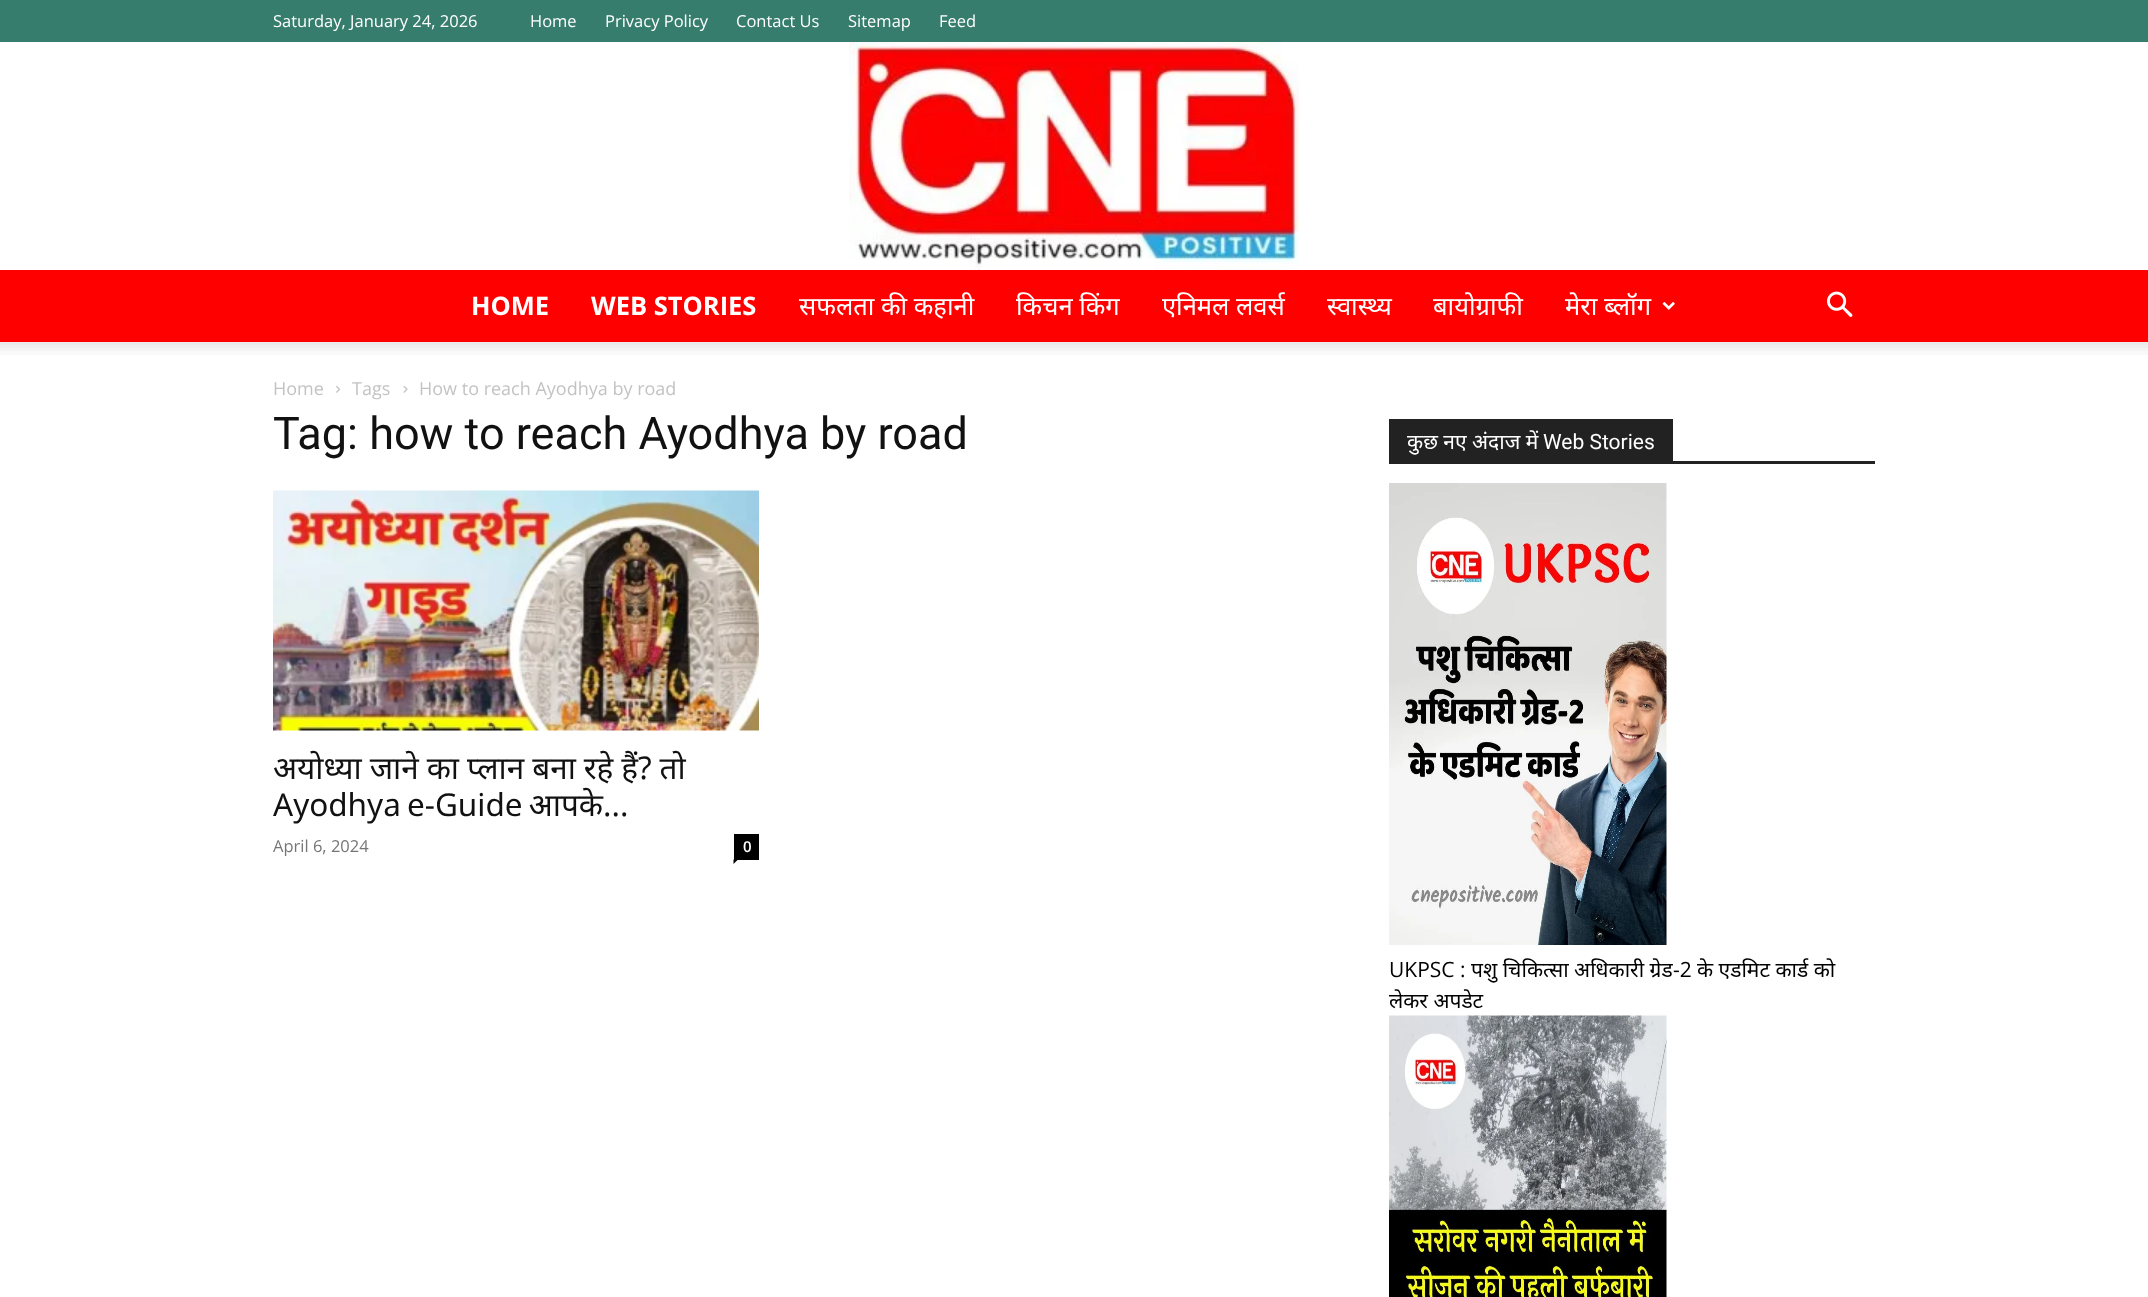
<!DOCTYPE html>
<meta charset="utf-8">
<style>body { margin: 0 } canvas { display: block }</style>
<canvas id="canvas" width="2148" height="1297"></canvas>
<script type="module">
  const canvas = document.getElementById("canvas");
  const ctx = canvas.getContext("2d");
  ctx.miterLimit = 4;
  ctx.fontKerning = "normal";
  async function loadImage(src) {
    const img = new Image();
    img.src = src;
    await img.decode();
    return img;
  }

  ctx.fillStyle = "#ffffff";
  ctx.fillRect(0, 0, 2148, 1297);
  ctx.fillStyle = "#367d6d";
  ctx.fillRect(0, 0, 2148, 42);
  ctx.font = "16.5px Open Sans";
  ctx.fillStyle = "#ffffff";
  ctx.fillText("Saturday, January 24, 2026", 273, 27);
  ctx.fillText("Home", 530, 27);
  ctx.fillText("Privacy Policy", 605, 27);
  ctx.fillText("Contact Us", 736, 27);
  ctx.fillText("Sitemap", 848, 27);
  ctx.fillText("Feed", 939, 27);
  ctx.drawImage(await loadImage("img1.png"), 849, 42, 450, 228);
  ctx.fillStyle = "#ff0000";
  ctx.fillRect(0, 270, 2148, 72);
  ctx.font = "bold 25.5px Open Sans";
  ctx.fillStyle = "#ffffff";
  ctx.fillText("HOME", 471, 315);
  ctx.fillText("WEB STORIES", 591, 315);
  ctx.font = "25.5px Noto Sans";
  ctx.fillText("सफलता की कहानी", 799, 315);
  ctx.fillText("किचन किंग", 1016, 315);
  ctx.fillText("एनिमल लवर्स", 1162, 315);
  ctx.fillText("स्वास्थ्य", 1327, 315);
  ctx.fillText("बायोग्राफी", 1433, 315);
  ctx.fillText("मेरा ब्लॉग", 1565, 315);
  ctx.drawImage(await loadImage("img2.png"), 1662, 302, 13, 8);
  ctx.drawImage(await loadImage("img3.png"), 1827, 291, 26, 26);
  ctx.drawImage(await loadImage("img4.png"), 0, 342, 2148, 13);
  ctx.font = "18px Open Sans";
  ctx.fillStyle = "#c3c3c3";
  ctx.fillText("Home", 273, 395);
  ctx.drawImage(await loadImage("img5.png"), 336, 386, 4, 7);
  ctx.fillText("Tags", 352, 395);
  ctx.drawImage(await loadImage("img6.png"), 403, 386, 5, 7);
  ctx.fillText("How to reach Ayodhya by road", 419, 395);
  ctx.font = "45px Roboto";
  ctx.fillStyle = "#111111";
  ctx.fillText("Tag: how to reach Ayodhya by road", 273, 449);
  ctx.drawImage(await loadImage("img7.png"), 273, 490, 486, 241);
  ctx.wordSpacing = "-0.25px";
  ctx.font = "31.5px Noto Sans";
  ctx.fillText("अयोध्या जाने का प्लान बना रहे हैं? तो", 273, 779);
  ctx.wordSpacing = "-2px";
  ctx.fillText("Ayodhya e-Guide आपके...", 273, 816);
  ctx.wordSpacing = "0px";
  ctx.font = "16.5px Open Sans";
  ctx.fillStyle = "#767676";
  ctx.fillText("April 6, 2024", 273, 852);
  ctx.fillStyle = "#000000";
  ctx.fillRect(734, 834, 25, 26);
  ctx.font = "600 15px Open Sans";
  ctx.fillStyle = "#ffffff";
  ctx.fillText("0", 743, 852);
  ctx.fillStyle = "#000000";
  ctx.beginPath();
  ctx.moveTo(733.5, 859.5);
  ctx.lineTo(738, 859.5);
  ctx.lineTo(733.5, 864);
  ctx.closePath();
  ctx.fill();
  ctx.fillStyle = "#222222";
  ctx.fillRect(1389, 461, 486, 3);
  ctx.fillRect(1389, 419, 284, 42);
  ctx.font = "21px Noto Sans";
  ctx.fillStyle = "#ffffff";
  ctx.fillText("कुछ नए अंदाज में", 1407, 449);
  ctx.font = "21px Roboto";
  ctx.fillText("Web Stories", 1543, 449);
  ctx.drawImage(await loadImage("img8.png"), 1389, 483, 278, 462);
  ctx.font = "21px Open Sans";
  ctx.fillStyle = "#000000";
  ctx.fillText("UKPSC :", 1389, 977);
  ctx.font = "21px Noto Sans";
  ctx.fillText("पशु चिकित्सा अधिकारी ग्रेड", 1471, 977);
  ctx.font = "21px Open Sans";
  ctx.fillText("-2", 1673, 977);
  ctx.font = "21px Noto Sans";
  ctx.fillText("के एडमिट कार्ड को", 1697, 977);
  ctx.save();
  ctx.beginPath();
  ctx.rect(1389, 419, 486, 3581);
  ctx.clip();
  ctx.fillText("लेकर अपडेट", 1389, 1008);
  ctx.restore();
  ctx.drawImage(await loadImage("img9.png"), 1389, 1015, 278, 282);
</script>
